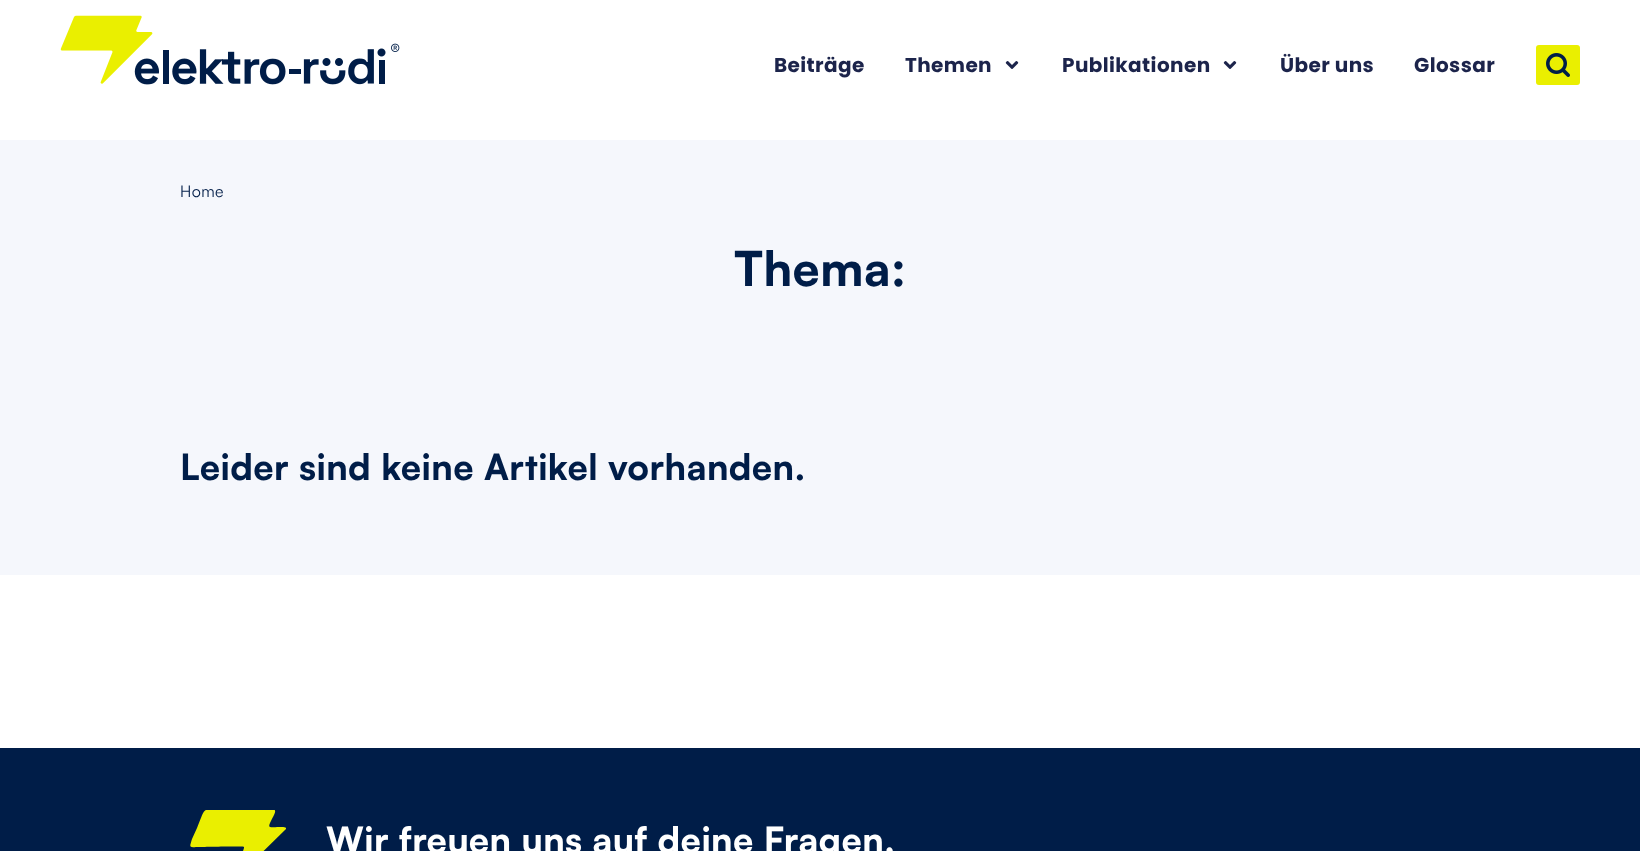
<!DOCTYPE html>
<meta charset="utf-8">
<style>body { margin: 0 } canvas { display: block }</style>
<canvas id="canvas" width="1640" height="851"></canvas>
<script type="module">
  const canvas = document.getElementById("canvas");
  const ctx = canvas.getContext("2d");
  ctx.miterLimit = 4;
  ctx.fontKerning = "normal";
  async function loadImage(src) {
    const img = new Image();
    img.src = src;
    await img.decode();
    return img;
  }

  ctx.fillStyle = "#ffffff";
  ctx.fillRect(0, 0, 1640, 851);
  ctx.drawImage(await loadImage("img1.png"), 60, 15, 340, 70);
  ctx.letterSpacing = "0.4px";
  ctx.font = "bold 20px Poppins";
  ctx.fillStyle = "#1c244b";
  ctx.fillText("Beiträge", 774, 72);
  ctx.fillText("Themen", 905, 72);
  ctx.drawImage(await loadImage("img2.png"), 1005, 61, 14, 8);
  ctx.fillText("Publikationen", 1062, 72);
  ctx.drawImage(await loadImage("img2.png"), 1223, 61, 14, 8);
  ctx.fillText("Über uns", 1280, 72);
  ctx.fillText("Glossar", 1414, 72);
  ctx.fillStyle = "#eaef00";
  ctx.beginPath();
  ctx.roundRect(1536, 45, 44, 40, 3);
  ctx.fill();
  ctx.drawImage(await loadImage("img3.png"), 1546, 53, 24, 24);
  ctx.fillStyle = "#f5f7fc";
  ctx.fillRect(0, 140, 1640, 435);
  ctx.font = "16px Satoshi";
  ctx.fillStyle = "#001d48";
  ctx.fillText("Home", 180, 197);
  ctx.font = "800 48px Satoshi";
  ctx.fillText("Thema:", 734, 286);
  ctx.font = "800 36px Satoshi";
  ctx.fillText("Leider sind keine Artikel vorhanden.", 180, 480);
  ctx.fillRect(0, 748, 1640, 103);
  ctx.save();
  ctx.beginPath();
  ctx.rect(190, 810, 96, 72);
  ctx.clip();
  ctx.fillStyle = "#eaef00";
  ctx.beginPath();
  ctx.moveTo(274, 810);
  ctx.lineTo(229, 810);
  ctx.bezierCurveTo(200, 810, 207, 804, 197, 828);
  ctx.lineTo(192, 839);
  ctx.bezierCurveTo(189, 849, 189, 847, 200, 847);
  ctx.bezierCurveTo(205, 847, 243, 846, 244, 847);
  ctx.bezierCurveTo(245, 848, 233, 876, 232, 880);
  ctx.bezierCurveTo(232, 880, 232, 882, 233, 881);
  ctx.lineTo(286, 829);
  ctx.lineTo(286, 828);
  ctx.bezierCurveTo(285, 826, 273, 828, 270, 827);
  ctx.bezierCurveTo(266, 826, 279, 810, 274, 810);
  ctx.closePath();
  ctx.fill();
  ctx.restore();
  ctx.fillStyle = "#ffffff";
  ctx.fillText("Wir freuen uns auf deine Fragen,", 326, 853);
</script>
